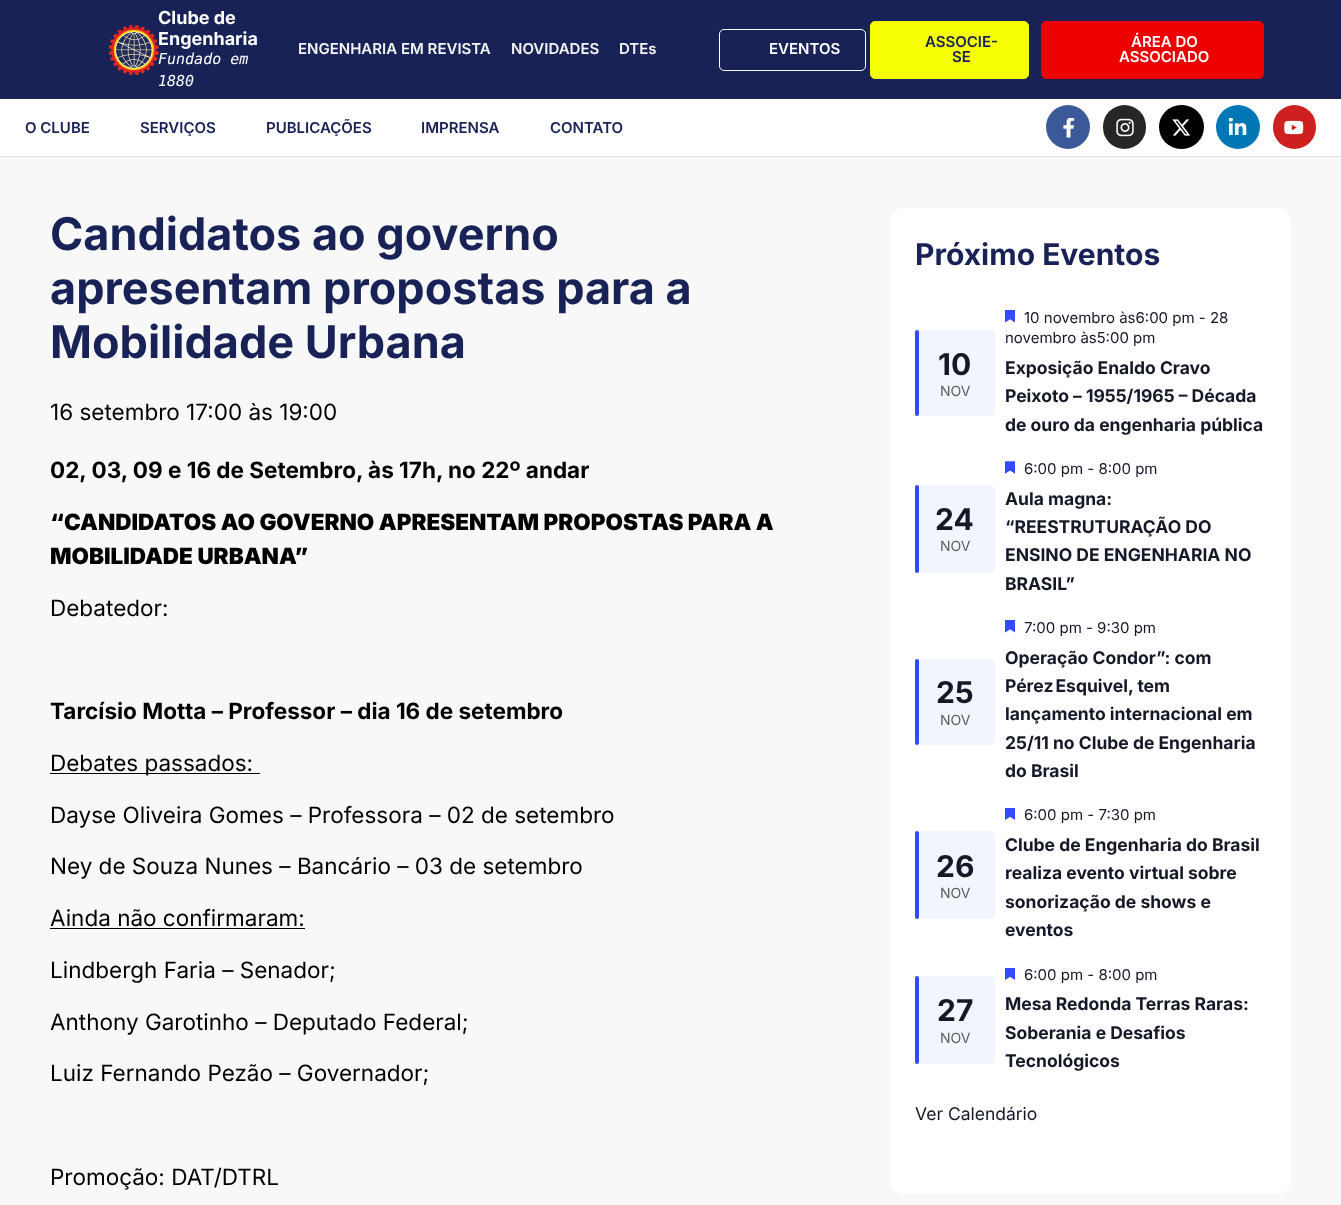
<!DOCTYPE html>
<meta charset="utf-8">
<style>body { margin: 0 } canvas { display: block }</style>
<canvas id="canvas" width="1341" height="1205"></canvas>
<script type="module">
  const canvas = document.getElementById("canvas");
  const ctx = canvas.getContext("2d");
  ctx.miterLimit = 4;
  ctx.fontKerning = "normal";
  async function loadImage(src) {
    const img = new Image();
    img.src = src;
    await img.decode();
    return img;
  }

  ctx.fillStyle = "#f8f8f8";
  ctx.fillRect(0, 0, 1341, 1205);
  ctx.fillStyle = "#182257";
  ctx.fillRect(0, 0, 1341, 99);
  ctx.drawImage(await loadImage("img1.png"), 109, 25, 50, 50);
  ctx.font = "bold 18px Inter";
  ctx.fillStyle = "#ffffff";
  ctx.fillText("Clube de", 158, 24);
  ctx.fillText("Engenharia", 158, 45);
  ctx.font = "italic 15px DejaVu Sans Mono";
  ctx.fillText("Fundado em", 158, 64);
  ctx.fillText("1880", 158, 86);
  ctx.font = "600 15px Inter";
  ctx.fillStyle = "#f5f5f5";
  ctx.fillText("ENGENHARIA EM REVISTA", 298, 54);
  ctx.fillText("NOVIDADES", 511, 54);
  ctx.fillText("DTEs", 619, 54);
  ctx.beginPath();
  ctx.roundRect(719.5, 29.5, 146, 41, 4.5);
  ctx.strokeStyle = "#ffffff";
  ctx.stroke();
  ctx.fillStyle = "#ffffff";
  ctx.fillText("EVENTOS", 769, 54);
  ctx.fillStyle = "#f7ff03";
  ctx.beginPath();
  ctx.roundRect(870.5, 21.5, 158, 57, 4.5);
  ctx.fill();
  ctx.strokeStyle = "#f7ff03";
  ctx.stroke();
  ctx.fillStyle = "#182257";
  ctx.fillText("ASSOCIE-", 925, 47);
  ctx.fillText("SE", 952, 62);
  ctx.fillStyle = "#ec0000";
  ctx.beginPath();
  ctx.roundRect(1041.5, 21.5, 222, 57, 4.5);
  ctx.fill();
  ctx.strokeStyle = "#ec0000";
  ctx.stroke();
  ctx.fillStyle = "#ffffff";
  ctx.fillText("ÁREA DO", 1131, 47);
  ctx.fillText("ASSOCIADO", 1119, 62);
  ctx.fillRect(0, 99, 1341, 57);
  ctx.fillStyle = "#e2e2e2";
  ctx.fillRect(0, 156, 1341, 1);
  ctx.fillStyle = "#182257";
  ctx.fillText("O CLUBE", 25, 133);
  ctx.fillText("SERVIÇOS", 140, 133);
  ctx.fillText("PUBLICAÇÕES", 266, 133);
  ctx.fillText("IMPRENSA", 421, 133);
  ctx.fillText("CONTATO", 550, 133);
  ctx.fillStyle = "#3b5998";
  ctx.beginPath();
  ctx.arc(1068, 127, 22, 0, Math.PI * 2);
  ctx.fill();
  ctx.drawImage(await loadImage("img2.png"), 1063, 118, 12, 20);
  ctx.fillStyle = "#262626";
  ctx.beginPath();
  ctx.roundRect(1103, 105, 43, 44, 21.5);
  ctx.fill();
  ctx.drawImage(await loadImage("img3.png"), 1116, 118, 18, 19);
  ctx.fillStyle = "#000000";
  ctx.beginPath();
  ctx.roundRect(1159, 105, 45, 44, 22);
  ctx.fill();
  ctx.drawImage(await loadImage("img4.png"), 1172, 119, 19, 17);
  ctx.fillStyle = "#0077b5";
  ctx.beginPath();
  ctx.arc(1238, 127, 22, 0, Math.PI * 2);
  ctx.fill();
  ctx.drawImage(await loadImage("img5.png"), 1228, 118, 19, 17);
  ctx.fillStyle = "#cd201f";
  ctx.beginPath();
  ctx.roundRect(1273, 105, 43, 44, 21.5);
  ctx.fill();
  ctx.drawImage(await loadImage("img6.png"), 1284, 120, 20, 15);
  ctx.font = "bold 45px Inter";
  ctx.fillStyle = "#182257";
  ctx.fillText("Candidatos ao governo", 50, 250);
  ctx.fillText("apresentam propostas para a", 50, 304);
  ctx.fillText("Mobilidade Urbana", 50, 358);
  ctx.font = "22.5px Inter";
  ctx.fillStyle = "#000000";
  ctx.fillText("16 setembro 17:00 às 19:00", 50, 420);
  ctx.font = "bold 22.5px Inter";
  ctx.fillText("02, 03, 09 e 16 de Setembro, às 17h, no 22º andar", 50, 478);
  ctx.font = "900 22.5px Inter";
  ctx.fillText("“CANDIDATOS AO GOVERNO APRESENTAM PROPOSTAS PARA A", 50, 530);
  ctx.fillText("MOBILIDADE URBANA”", 50, 564);
  ctx.font = "22.5px Inter";
  ctx.fillText("Debatedor:", 50, 616);
  ctx.font = "bold 22.5px Inter";
  ctx.fillText("Tarcísio Motta – Professor – dia 16 de setembro", 50, 719);
  ctx.fillRect(50, 773, 210, 1);
  ctx.font = "22.5px Inter";
  ctx.fillText("Debates passados:", 50, 771);
  ctx.fillText("Dayse Oliveira Gomes – Professora – 02 de setembro", 50, 823);
  ctx.fillText("Ney de Souza Nunes – Bancário – 03 de setembro", 50, 874);
  ctx.fillText("Ainda não confirmaram:", 50, 926);
  ctx.fillRect(50, 928, 255, 1);
  ctx.fillText("Lindbergh Faria – Senador;", 50, 978);
  ctx.fillText("Anthony Garotinho – Deputado Federal;", 50, 1030);
  ctx.fillText("Luiz Fernando Pezão – Governador;", 50, 1081);
  ctx.fillText("Promoção: DAT/DTRL", 50, 1185);
  ctx.fillStyle = "#ffffff";
  ctx.beginPath();
  ctx.roundRect(890, 208, 401, 986, 13);
  ctx.fill();
  ctx.font = "bold 30px Inter";
  ctx.fillStyle = "#182257";
  ctx.fillText("Próximo Eventos", 915, 265);
  ctx.fillStyle = "#f1f5fd";
  ctx.beginPath();
  ctx.roundRect(915, 330, 80, 86, 5);
  ctx.fill();
  ctx.fillStyle = "#334aff";
  ctx.beginPath();
  ctx.roundRect(915, 330, 4, 86, 2);
  ctx.fill();
  ctx.fillStyle = "#141827";
  ctx.fillText("10", 938, 375);
  ctx.font = "14px Inter";
  ctx.fillStyle = "#5d5d5d";
  ctx.fillText("NOV", 940, 396);
  ctx.drawImage(await loadImage("img7.png"), 1005, 310, 10, 13);
  ctx.font = "15px Inter";
  ctx.fillStyle = "#141827";
  ctx.fillText("10 novembro às6:00 pm - 28", 1024, 323);
  ctx.fillText("novembro às5:00 pm", 1005, 343);
  ctx.font = "bold 17.5px Inter";
  ctx.fillText("Exposição Enaldo Cravo", 1005, 374);
  ctx.fillText("Peixoto – 1955/1965 – Década", 1005, 402);
  ctx.fillText("de ouro da engenharia pública", 1005, 431);
  ctx.fillStyle = "#f1f5fd";
  ctx.beginPath();
  ctx.roundRect(915, 485, 80, 88, 5);
  ctx.fill();
  ctx.fillStyle = "#334aff";
  ctx.beginPath();
  ctx.roundRect(915, 485, 4, 88, 2);
  ctx.fill();
  ctx.font = "bold 30px Inter";
  ctx.fillStyle = "#141827";
  ctx.fillText("24", 935, 530);
  ctx.font = "14px Inter";
  ctx.fillStyle = "#5d5d5d";
  ctx.fillText("NOV", 940, 551);
  ctx.drawImage(await loadImage("img8.png"), 1005, 461, 10, 13);
  ctx.font = "15px Inter";
  ctx.fillStyle = "#141827";
  ctx.fillText("6:00 pm - 8:00 pm", 1024, 474);
  ctx.font = "bold 17.5px Inter";
  ctx.fillText("Aula magna:", 1005, 505);
  ctx.fillText("“REESTRUTURAÇÃO DO", 1005, 533);
  ctx.fillText("ENSINO DE ENGENHARIA NO", 1005, 561);
  ctx.fillText("BRASIL”", 1005, 590);
  ctx.fillStyle = "#f1f5fd";
  ctx.beginPath();
  ctx.roundRect(915, 659, 80, 86, 5);
  ctx.fill();
  ctx.fillStyle = "#334aff";
  ctx.beginPath();
  ctx.roundRect(915, 659, 4, 86, 2);
  ctx.fill();
  ctx.font = "bold 30px Inter";
  ctx.fillStyle = "#141827";
  ctx.fillText("25", 936, 703);
  ctx.font = "14px Inter";
  ctx.fillStyle = "#5d5d5d";
  ctx.fillText("NOV", 940, 725);
  ctx.drawImage(await loadImage("img7.png"), 1005, 620, 10, 13);
  ctx.font = "15px Inter";
  ctx.fillStyle = "#141827";
  ctx.fillText("7:00 pm - 9:30 pm", 1024, 633);
  ctx.font = "bold 17.5px Inter";
  ctx.fillText("Operação Condor”: com", 1005, 664);
  ctx.fillText("Pérez Esquivel, tem", 1005, 692);
  ctx.fillText("lançamento internacional em", 1005, 720);
  ctx.fillText("25/11 no Clube de Engenharia", 1005, 749);
  ctx.fillText("do Brasil", 1005, 777);
  ctx.fillStyle = "#f1f5fd";
  ctx.beginPath();
  ctx.roundRect(915, 831, 80, 88, 5);
  ctx.fill();
  ctx.fillStyle = "#334aff";
  ctx.beginPath();
  ctx.roundRect(915, 831, 4, 88, 2);
  ctx.fill();
  ctx.font = "bold 30px Inter";
  ctx.fillStyle = "#141827";
  ctx.fillText("26", 936, 877);
  ctx.font = "14px Inter";
  ctx.fillStyle = "#5d5d5d";
  ctx.fillText("NOV", 940, 898);
  ctx.drawImage(await loadImage("img9.png"), 1005, 808, 10, 12);
  ctx.font = "15px Inter";
  ctx.fillStyle = "#141827";
  ctx.fillText("6:00 pm - 7:30 pm", 1024, 820);
  ctx.font = "bold 17.5px Inter";
  ctx.fillText("Clube de Engenharia do Brasil", 1005, 851);
  ctx.fillText("realiza evento virtual sobre", 1005, 879);
  ctx.fillText("sonorização de shows e", 1005, 908);
  ctx.fillText("eventos", 1005, 936);
  ctx.fillStyle = "#f1f5fd";
  ctx.beginPath();
  ctx.roundRect(915, 976, 80, 88, 5);
  ctx.fill();
  ctx.fillStyle = "#334aff";
  ctx.beginPath();
  ctx.roundRect(915, 976, 4, 88, 2);
  ctx.fill();
  ctx.font = "bold 30px Inter";
  ctx.fillStyle = "#141827";
  ctx.fillText("27", 937, 1021);
  ctx.font = "14px Inter";
  ctx.fillStyle = "#5d5d5d";
  ctx.fillText("NOV", 940, 1043);
  ctx.drawImage(await loadImage("img9.png"), 1005, 968, 10, 12);
  ctx.font = "15px Inter";
  ctx.fillStyle = "#141827";
  ctx.fillText("6:00 pm - 8:00 pm", 1024, 980);
  ctx.font = "bold 17.5px Inter";
  ctx.fillText("Mesa Redonda Terras Raras:", 1005, 1010);
  ctx.fillText("Soberania e Desafios", 1005, 1039);
  ctx.fillText("Tecnológicos", 1005, 1067);
  ctx.font = "17.5px Inter";
  ctx.fillText("Ver Calendário", 915, 1120);
</script>
